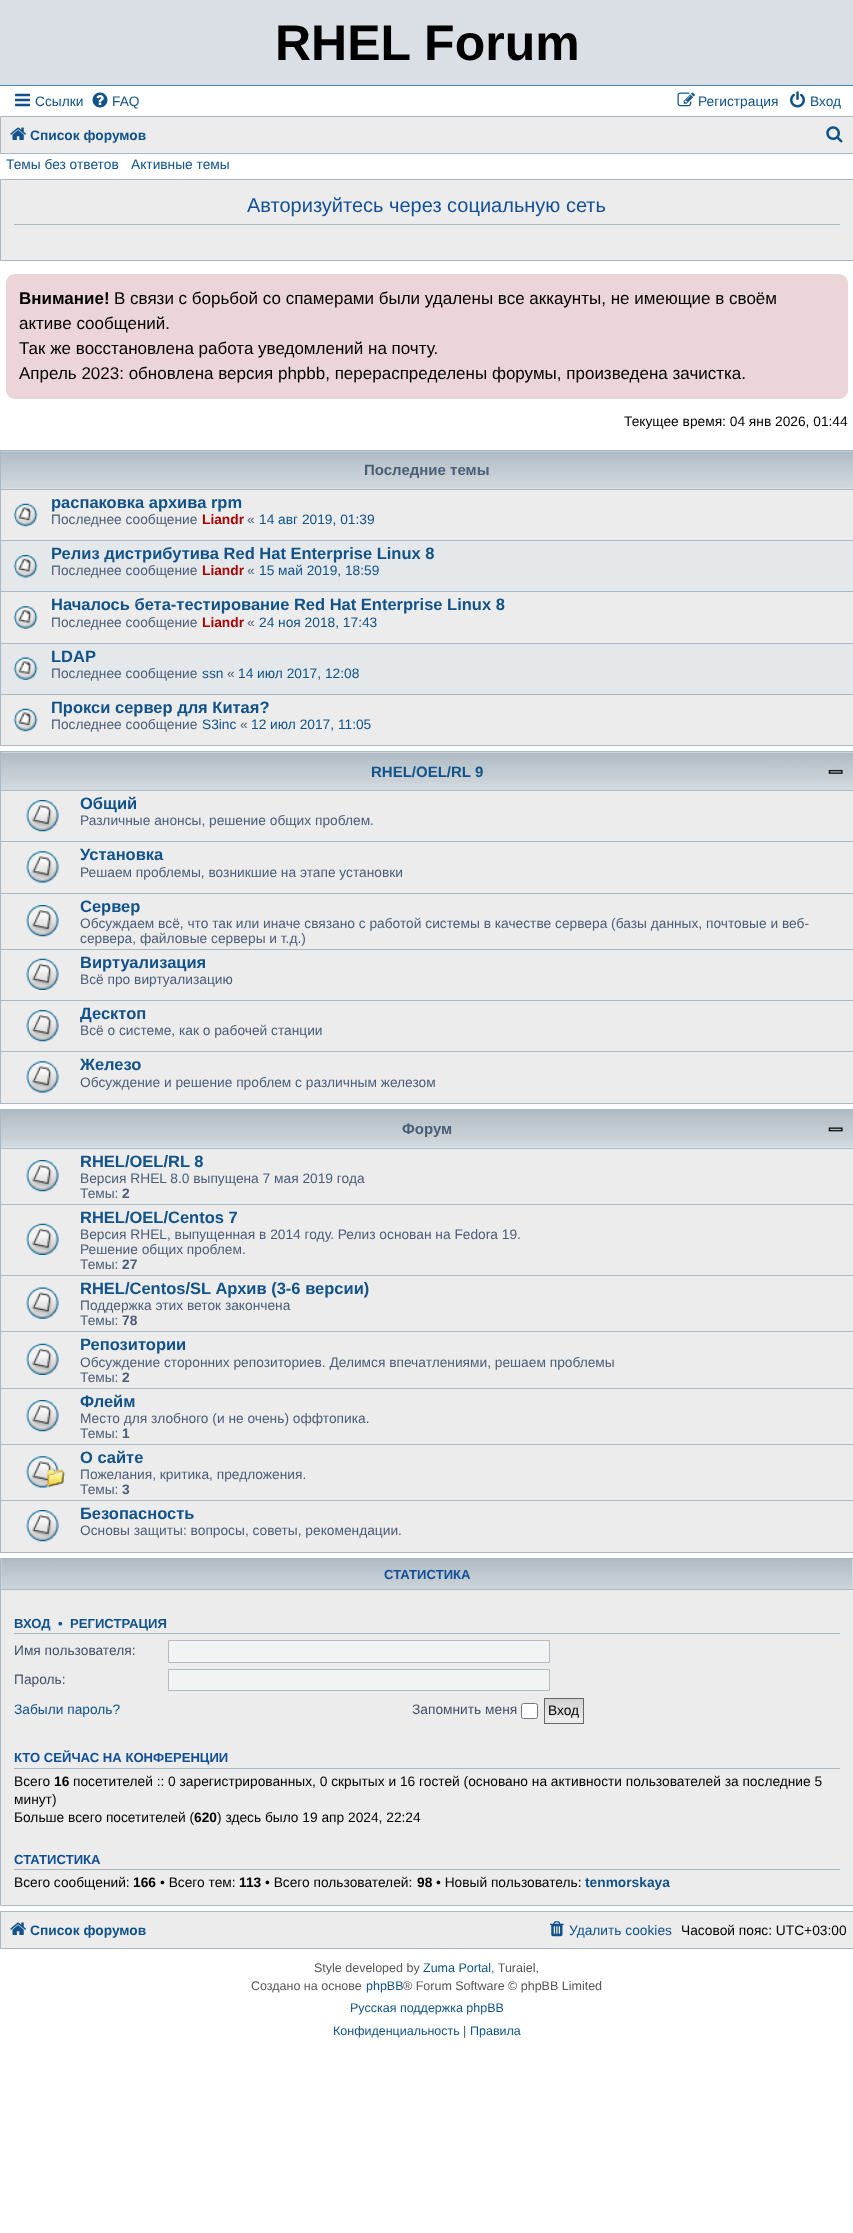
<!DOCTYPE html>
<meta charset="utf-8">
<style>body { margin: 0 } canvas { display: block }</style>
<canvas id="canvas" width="853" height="2233"></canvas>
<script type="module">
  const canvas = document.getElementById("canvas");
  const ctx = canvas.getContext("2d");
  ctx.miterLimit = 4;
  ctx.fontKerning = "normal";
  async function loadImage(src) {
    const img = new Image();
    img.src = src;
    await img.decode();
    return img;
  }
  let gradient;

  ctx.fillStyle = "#ffffff";
  ctx.fillRect(0, 0, 853, 2233);
  ctx.fillStyle = "#d9dfe4";
  ctx.fillRect(0, 0, 853, 85);
  ctx.fillStyle = "#4787a7";
  ctx.fillRect(0, 85, 853, 1);
  ctx.font = "bold 50px Liberation Sans";
  ctx.fillStyle = "#000000";
  ctx.fillText("RHEL Forum", 275, 60);
  ctx.drawImage(await loadImage("img1.png"), 15, 93, 15, 14);
  ctx.font = "13.75px Liberation Sans";
  ctx.fillStyle = "#105289";
  ctx.fillText("Ссылки", 35, 106);
  ctx.drawImage(await loadImage("img2.png"), 92, 92, 16, 16);
  ctx.fillText("FAQ", 112, 106);
  ctx.drawImage(await loadImage("img3.png"), 677, 92, 18, 15);
  ctx.fillText("Регистрация", 698, 106);
  ctx.drawImage(await loadImage("img4.png"), 790, 91, 15, 17);
  ctx.fillText("Вход", 810, 106);
  ctx.fillStyle = "#ececec";
  ctx.beginPath();
  ctx.rect(0.5, 116.5, 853, 37);
  ctx.fill();
  ctx.strokeStyle = "#a9b8c2";
  ctx.stroke();
  ctx.drawImage(await loadImage("img5.png"), 10, 127, 16, 13);
  ctx.font = "bold 13.75px Liberation Sans";
  ctx.fillStyle = "#105289";
  ctx.fillText("Список форумов", 30, 140);
  ctx.drawImage(await loadImage("img6.png"), 826, 126, 17, 17);
  ctx.font = "13.75px Liberation Sans";
  ctx.fillText("Темы без ответов", 6, 169);
  ctx.fillText("Активные темы", 131, 169);
  ctx.fillStyle = "#ececec";
  ctx.beginPath();
  ctx.rect(0.5, 179.5, 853, 81);
  ctx.fill();
  ctx.stroke();
  ctx.fillStyle = "#a9b8c2";
  ctx.fillRect(14, 224, 826, 1);
  ctx.font = "20px Liberation Sans";
  ctx.fillStyle = "#115098";
  ctx.fillText("Авторизуйтесь через социальную сеть", 247, 212);
  ctx.fillStyle = "#ecd5d8";
  ctx.beginPath();
  ctx.roundRect(6, 274, 842, 125, 9);
  ctx.fill();
  ctx.font = "bold 17px Liberation Sans";
  ctx.fillStyle = "#000000";
  ctx.fillText("Внимание!", 19, 304);
  ctx.font = "17px Liberation Sans";
  ctx.fillText("В связи с борьбой со спамерами были удалены все аккаунты, не имеющие в своём", 114, 304);
  ctx.fillText("активе сообщений.", 19, 329);
  ctx.fillText("Так же восстановлена работа уведомлений на почту.", 19, 354);
  ctx.fillText("Апрель 2023: обновлена версия phpbb, перераспределены форумы, произведена зачистка.", 19, 379);
  ctx.font = "13.75px Liberation Sans";
  ctx.fillText("Текущее время: 04 янв 2026, 01:44", 624, 426);
  ctx.fillStyle = "#ececec";
  ctx.fillRect(1, 451, 852, 294);
  ctx.drawImage(await loadImage("img7.png"), 1, 451, 852, 38);
  ctx.strokeRect(0.5, 450.5, 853, 295);
  ctx.font = "bold 15px Liberation Sans";
  ctx.fillStyle = "#4c5d77";
  ctx.fillText("Последние темы", 364, 475);
  ctx.fillStyle = "#a9b8c2";
  ctx.fillRect(1, 489, 852, 1);
  ctx.drawImage(await loadImage("img8.png"), 13, 503, 25, 24);
  ctx.font = "bold 16.5px Liberation Sans";
  ctx.fillStyle = "#105289";
  ctx.fillText("распаковка архива rpm", 51, 508);
  ctx.font = "13.75px Liberation Sans";
  ctx.fillStyle = "#4c5d77";
  ctx.fillText("Последнее сообщение", 51, 524);
  ctx.font = "bold 13.75px Liberation Sans";
  ctx.fillStyle = "#aa0000";
  ctx.fillText("Liandr", 202, 524);
  ctx.font = "13.75px Liberation Sans";
  ctx.fillStyle = "#4c5d77";
  ctx.fillText("«", 247, 524);
  ctx.fillStyle = "#105289";
  ctx.fillText("14 авг 2019, 01:39", 259, 524);
  ctx.fillStyle = "#e5e8ea";
  ctx.fillRect(1, 541, 852, 50);
  ctx.fillStyle = "#a9b8c2";
  ctx.fillRect(1, 540, 852, 1);
  ctx.drawImage(await loadImage("img9.png"), 13, 555, 25, 23);
  ctx.font = "bold 16.5px Liberation Sans";
  ctx.fillStyle = "#105289";
  ctx.fillText("Релиз дистрибутива Red Hat Enterprise Linux 8", 51, 559);
  ctx.font = "13.75px Liberation Sans";
  ctx.fillStyle = "#4c5d77";
  ctx.fillText("Последнее сообщение", 51, 575);
  ctx.font = "bold 13.75px Liberation Sans";
  ctx.fillStyle = "#aa0000";
  ctx.fillText("Liandr", 202, 575);
  ctx.font = "13.75px Liberation Sans";
  ctx.fillStyle = "#4c5d77";
  ctx.fillText("«", 247, 575);
  ctx.fillStyle = "#105289";
  ctx.fillText("15 май 2019, 18:59", 259, 575);
  ctx.fillStyle = "#a9b8c2";
  ctx.fillRect(1, 591, 852, 1);
  ctx.drawImage(await loadImage("img10.png"), 13, 606, 25, 23);
  ctx.font = "bold 16.5px Liberation Sans";
  ctx.fillStyle = "#105289";
  ctx.fillText("Началось бета-тестирование Red Hat Enterprise Linux 8", 51, 610);
  ctx.font = "13.75px Liberation Sans";
  ctx.fillStyle = "#4c5d77";
  ctx.fillText("Последнее сообщение", 51, 627);
  ctx.font = "bold 13.75px Liberation Sans";
  ctx.fillStyle = "#aa0000";
  ctx.fillText("Liandr", 202, 627);
  ctx.font = "13.75px Liberation Sans";
  ctx.fillStyle = "#4c5d77";
  ctx.fillText("«", 247, 627);
  ctx.fillStyle = "#105289";
  ctx.fillText("24 ноя 2018, 17:43", 259, 627);
  ctx.fillStyle = "#e5e8ea";
  ctx.fillRect(1, 644, 852, 50);
  ctx.fillStyle = "#a9b8c2";
  ctx.fillRect(1, 643, 852, 1);
  ctx.drawImage(await loadImage("img11.png"), 13, 657, 25, 23);
  ctx.font = "bold 16.5px Liberation Sans";
  ctx.fillStyle = "#105289";
  ctx.fillText("LDAP", 51, 662);
  ctx.font = "13.75px Liberation Sans";
  ctx.fillStyle = "#4c5d77";
  ctx.fillText("Последнее сообщение", 51, 678);
  ctx.fillStyle = "#105289";
  ctx.fillText("ssn", 202, 678);
  ctx.fillStyle = "#4c5d77";
  ctx.fillText("«", 227, 678);
  ctx.fillStyle = "#105289";
  ctx.fillText("14 июл 2017, 12:08", 238, 678);
  ctx.fillStyle = "#a9b8c2";
  ctx.fillRect(1, 694, 852, 1);
  ctx.drawImage(await loadImage("img8.png"), 13, 708, 25, 24);
  ctx.font = "bold 16.5px Liberation Sans";
  ctx.fillStyle = "#105289";
  ctx.fillText("Прокси сервер для Китая?", 51, 713);
  ctx.font = "13.75px Liberation Sans";
  ctx.fillStyle = "#4c5d77";
  ctx.fillText("Последнее сообщение", 51, 729);
  ctx.fillStyle = "#105289";
  ctx.fillText("S3inc", 202, 729);
  ctx.fillStyle = "#4c5d77";
  ctx.fillText("«", 240, 729);
  ctx.fillStyle = "#105289";
  ctx.fillText("12 июл 2017, 11:05", 251, 729);
  ctx.fillStyle = "#ececec";
  ctx.fillRect(1, 752, 852, 351);
  ctx.drawImage(await loadImage("img12.png"), 1, 752, 852, 38);
  ctx.strokeRect(0.5, 751.5, 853, 352);
  ctx.font = "bold 15px Liberation Sans";
  ctx.fillStyle = "#105289";
  ctx.fillText("RHEL/OEL/RL 9", 371, 777);
  ctx.drawImage(await loadImage("img13.png"), 828, 769, 15, 5);
  ctx.fillStyle = "#a9b8c2";
  ctx.fillRect(1, 790, 852, 1);
  ctx.drawImage(await loadImage("img14.png"), 26, 800, 33, 32);
  ctx.font = "bold 16.5px Liberation Sans";
  ctx.fillStyle = "#105289";
  ctx.fillText("Общий", 80, 809);
  ctx.font = "13.75px Liberation Sans";
  ctx.fillStyle = "#4c5d77";
  ctx.fillText("Различные анонсы, решение общих проблем.", 80, 825);
  ctx.fillStyle = "#a9b8c2";
  ctx.fillRect(1, 841, 852, 1);
  ctx.drawImage(await loadImage("img15.png"), 26, 851, 33, 32);
  ctx.font = "bold 16.5px Liberation Sans";
  ctx.fillStyle = "#105289";
  ctx.fillText("Установка", 80, 860);
  ctx.font = "13.75px Liberation Sans";
  ctx.fillStyle = "#4c5d77";
  ctx.fillText("Решаем проблемы, возникшие на этапе установки", 80, 877);
  ctx.fillStyle = "#a9b8c2";
  ctx.fillRect(1, 893, 852, 1);
  ctx.drawImage(await loadImage("img14.png"), 26, 905, 33, 32);
  ctx.font = "bold 16.5px Liberation Sans";
  ctx.fillStyle = "#105289";
  ctx.fillText("Сервер", 80, 912);
  ctx.font = "13.75px Liberation Sans";
  ctx.fillStyle = "#4c5d77";
  ctx.fillText("Обсуждаем всё, что так или иначе связано с работой системы в качестве сервера (базы данных, почтовые и веб-", 80, 928);
  ctx.fillText("сервера, файловые серверы и т.д.)", 80, 943);
  ctx.fillStyle = "#a9b8c2";
  ctx.fillRect(1, 949, 852, 1);
  ctx.drawImage(await loadImage("img16.png"), 26, 958, 33, 32);
  ctx.font = "bold 16.5px Liberation Sans";
  ctx.fillStyle = "#105289";
  ctx.fillText("Виртуализация", 80, 968);
  ctx.font = "13.75px Liberation Sans";
  ctx.fillStyle = "#4c5d77";
  ctx.fillText("Всё про виртуализацию", 80, 984);
  ctx.fillStyle = "#a9b8c2";
  ctx.fillRect(1, 1000, 852, 1);
  ctx.drawImage(await loadImage("img14.png"), 26, 1010, 33, 32);
  ctx.font = "bold 16.5px Liberation Sans";
  ctx.fillStyle = "#105289";
  ctx.fillText("Десктоп", 80, 1019);
  ctx.font = "13.75px Liberation Sans";
  ctx.fillStyle = "#4c5d77";
  ctx.fillText("Всё о системе, как о рабочей станции", 80, 1035);
  ctx.fillStyle = "#a9b8c2";
  ctx.fillRect(1, 1051, 852, 1);
  ctx.drawImage(await loadImage("img15.png"), 26, 1061, 33, 32);
  ctx.font = "bold 16.5px Liberation Sans";
  ctx.fillStyle = "#105289";
  ctx.fillText("Железо", 80, 1070);
  ctx.font = "13.75px Liberation Sans";
  ctx.fillStyle = "#4c5d77";
  ctx.fillText("Обсуждение и решение проблем с различным железом", 80, 1087);
  ctx.fillStyle = "#ececec";
  ctx.fillRect(1, 1147, 852, 405);
  ctx.drawImage(await loadImage("img17.png"), 1, 1110, 852, 38);
  ctx.strokeRect(0.5, 1109.5, 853, 443);
  ctx.font = "bold 15px Liberation Sans";
  ctx.fillStyle = "#4c5d77";
  ctx.fillText("Форум", 402, 1134);
  ctx.drawImage(await loadImage("img18.png"), 828, 1127, 15, 5);
  ctx.fillStyle = "#a9b8c2";
  ctx.fillRect(1, 1148, 852, 1);
  ctx.drawImage(await loadImage("img19.png"), 26, 1160, 33, 32);
  ctx.font = "bold 16.5px Liberation Sans";
  ctx.fillStyle = "#105289";
  ctx.fillText("RHEL/OEL/RL 8", 80, 1167);
  ctx.font = "13.75px Liberation Sans";
  ctx.fillStyle = "#4c5d77";
  ctx.fillText("Версия RHEL 8.0 выпущена 7 мая 2019 года", 80, 1183);
  ctx.fillText("Темы:", 80, 1198);
  ctx.font = "bold 13.75px Liberation Sans";
  ctx.fillText("2", 122, 1198);
  ctx.fillStyle = "#a9b8c2";
  ctx.fillRect(1, 1204, 852, 1);
  ctx.drawImage(await loadImage("img16.png"), 26, 1223, 33, 32);
  ctx.font = "bold 16.5px Liberation Sans";
  ctx.fillStyle = "#105289";
  ctx.fillText("RHEL/OEL/Centos 7", 80, 1223);
  ctx.font = "13.75px Liberation Sans";
  ctx.fillStyle = "#4c5d77";
  ctx.fillText("Версия RHEL, выпущенная в 2014 году. Релиз основан на Fedora 19.", 80, 1239);
  ctx.fillText("Решение общих проблем.", 80, 1254);
  ctx.fillText("Темы:", 80, 1269);
  ctx.font = "bold 13.75px Liberation Sans";
  ctx.fillText("27", 122, 1269);
  ctx.fillStyle = "#a9b8c2";
  ctx.fillRect(1, 1275, 852, 1);
  ctx.drawImage(await loadImage("img20.png"), 26, 1287, 33, 32);
  ctx.font = "bold 16.5px Liberation Sans";
  ctx.fillStyle = "#105289";
  ctx.fillText("RHEL/Centos/SL Архив (3-6 версии)", 80, 1294);
  ctx.font = "13.75px Liberation Sans";
  ctx.fillStyle = "#4c5d77";
  ctx.fillText("Поддержка этих веток закончена", 80, 1310);
  ctx.fillText("Темы:", 80, 1325);
  ctx.font = "bold 13.75px Liberation Sans";
  ctx.fillText("78", 122, 1325);
  ctx.fillStyle = "#a9b8c2";
  ctx.fillRect(1, 1331, 852, 1);
  ctx.drawImage(await loadImage("img16.png"), 26, 1343, 33, 32);
  ctx.font = "bold 16.5px Liberation Sans";
  ctx.fillStyle = "#105289";
  ctx.fillText("Репозитории", 80, 1350);
  ctx.font = "13.75px Liberation Sans";
  ctx.fillStyle = "#4c5d77";
  ctx.fillText("Обсуждение сторонних репозиториев. Делимся впечатлениями, решаем проблемы", 80, 1367);
  ctx.fillText("Темы:", 80, 1382);
  ctx.font = "bold 13.75px Liberation Sans";
  ctx.fillText("2", 122, 1382);
  ctx.fillStyle = "#a9b8c2";
  ctx.fillRect(1, 1388, 852, 1);
  ctx.drawImage(await loadImage("img14.png"), 26, 1400, 33, 32);
  ctx.font = "bold 16.5px Liberation Sans";
  ctx.fillStyle = "#105289";
  ctx.fillText("Флейм", 80, 1407);
  ctx.font = "13.75px Liberation Sans";
  ctx.fillStyle = "#4c5d77";
  ctx.fillText("Место для злобного (и не очень) оффтопика.", 80, 1423);
  ctx.fillText("Темы:", 80, 1438);
  ctx.font = "bold 13.75px Liberation Sans";
  ctx.fillText("1", 122, 1438);
  ctx.fillStyle = "#a9b8c2";
  ctx.fillRect(1, 1444, 852, 1);
  ctx.drawImage(await loadImage("img21.png"), 26, 1456, 40, 32);
  ctx.font = "bold 16.5px Liberation Sans";
  ctx.fillStyle = "#105289";
  ctx.fillText("О сайте", 80, 1463);
  ctx.font = "13.75px Liberation Sans";
  ctx.fillStyle = "#4c5d77";
  ctx.fillText("Пожелания, критика, предложения.", 80, 1479);
  ctx.fillText("Темы:", 80, 1494);
  ctx.font = "bold 13.75px Liberation Sans";
  ctx.fillText("3", 122, 1494);
  ctx.fillStyle = "#a9b8c2";
  ctx.fillRect(1, 1500, 852, 1);
  ctx.drawImage(await loadImage("img14.png"), 26, 1510, 33, 32);
  ctx.font = "bold 16.5px Liberation Sans";
  ctx.fillStyle = "#105289";
  ctx.fillText("Безопасность", 80, 1519);
  ctx.font = "13.75px Liberation Sans";
  ctx.fillStyle = "#4c5d77";
  ctx.fillText("Основы защиты: вопросы, советы, рекомендации.", 80, 1535);
  ctx.fillStyle = "#ececec";
  ctx.beginPath();
  ctx.rect(0.5, 1558.5, 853, 347);
  ctx.fill();
  ctx.stroke();
  ctx.drawImage(await loadImage("img22.png"), 1, 1559, 852, 30);
  ctx.fillStyle = "#a9b8c2";
  ctx.fillRect(1, 1589, 852, 1);
  ctx.font = "bold 13.1px Liberation Sans";
  ctx.fillStyle = "#115098";
  ctx.fillText("СТАТИСТИКА", 384, 1579);
  ctx.fillStyle = "#a9b8c2";
  ctx.fillRect(14, 1633, 826, 1);
  ctx.fillStyle = "#105289";
  ctx.fillText("ВХОД", 14, 1628);
  ctx.fillStyle = "#115098";
  ctx.fillText("•", 58, 1628);
  ctx.fillStyle = "#105289";
  ctx.fillText("РЕГИСТРАЦИЯ", 70, 1628);
  ctx.font = "13.75px Liberation Sans";
  ctx.fillStyle = "#425067";
  ctx.fillText("Имя пользователя:", 14, 1655);
  ctx.fillStyle = "#f2f3f3";
  ctx.beginPath();
  ctx.rect(168.5, 1640.5, 381, 22);
  ctx.fill();
  ctx.strokeStyle = "#b4bac0";
  ctx.stroke();
  ctx.fillStyle = "#425067";
  ctx.fillText("Пароль:", 14, 1684);
  ctx.fillStyle = "#f2f3f3";
  ctx.beginPath();
  ctx.rect(168.5, 1669.5, 381, 21);
  ctx.fill();
  ctx.stroke();
  ctx.fillStyle = "#105289";
  ctx.fillText("Забыли пароль?", 14, 1714);
  ctx.fillStyle = "#425067";
  ctx.fillText("Запомнить меня", 412, 1714);
  ctx.fillStyle = "#ffffff";
  ctx.beginPath();
  ctx.roundRect(521.5, 1703.5, 16, 15, 2);
  ctx.fill();
  ctx.strokeStyle = "#767676";
  ctx.stroke();
  gradient = ctx.createLinearGradient(564, 1699, 564, 1723);
  gradient.addColorStop(0, "#d2d2d2");
  gradient.addColorStop(1, "#efefef");
  ctx.fillStyle = gradient;
  ctx.fillRect(545, 1699, 38, 19);
  ctx.strokeStyle = "#666666";
  ctx.strokeRect(544.5, 1698.5, 39, 25);
  ctx.fillStyle = "#000000";
  ctx.fillText("Вход", 548, 1715);
  ctx.fillStyle = "#a9b8c2";
  ctx.fillRect(14, 1768, 826, 1);
  ctx.font = "bold 13.1px Liberation Sans";
  ctx.fillStyle = "#115098";
  ctx.fillText("КТО СЕЙЧАС НА КОНФЕРЕНЦИИ", 14, 1762);
  ctx.font = "13.75px Liberation Sans";
  ctx.fillStyle = "#000000";
  ctx.fillText("Всего", 14, 1786);
  ctx.font = "bold 13.75px Liberation Sans";
  ctx.fillText("16", 54, 1786);
  ctx.font = "13.75px Liberation Sans";
  ctx.fillText("посетителей :: 0 зарегистрированных, 0 скрытых и 16 гостей (основано на активности пользователей за последние 5", 73, 1786);
  ctx.fillText("минут)", 14, 1804);
  ctx.fillText("Больше всего посетителей (", 14, 1822);
  ctx.font = "bold 13.75px Liberation Sans";
  ctx.fillText("620", 194, 1822);
  ctx.font = "13.75px Liberation Sans";
  ctx.fillText(") здесь было 19 апр 2024, 22:24", 217, 1822);
  ctx.fillStyle = "#a9b8c2";
  ctx.fillRect(14, 1869, 826, 1);
  ctx.font = "bold 13.1px Liberation Sans";
  ctx.fillStyle = "#115098";
  ctx.fillText("СТАТИСТИКА", 14, 1864);
  ctx.font = "13.75px Liberation Sans";
  ctx.fillStyle = "#000000";
  ctx.fillText("Всего сообщений:", 14, 1887);
  ctx.font = "bold 13.75px Liberation Sans";
  ctx.fillText("166", 133, 1887);
  ctx.font = "13.75px Liberation Sans";
  ctx.fillText("• Всего тем:", 160, 1887);
  ctx.font = "bold 13.75px Liberation Sans";
  ctx.fillText("113", 239, 1887);
  ctx.font = "13.75px Liberation Sans";
  ctx.fillText("• Всего пользователей:", 265, 1887);
  ctx.font = "bold 13.75px Liberation Sans";
  ctx.fillText("98", 417, 1887);
  ctx.font = "13.75px Liberation Sans";
  ctx.fillText("• Новый пользователь:", 436, 1887);
  ctx.font = "bold 13.75px Liberation Sans";
  ctx.fillStyle = "#105289";
  ctx.fillText("tenmorskaya", 585, 1887);
  ctx.fillStyle = "#ececec";
  ctx.beginPath();
  ctx.rect(0.5, 1911.5, 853, 37);
  ctx.fill();
  ctx.strokeStyle = "#a9b8c2";
  ctx.stroke();
  ctx.drawImage(await loadImage("img5.png"), 10, 1922, 16, 13);
  ctx.fillStyle = "#105289";
  ctx.fillText("Список форумов", 30, 1935);
  ctx.drawImage(await loadImage("img23.png"), 550, 1921, 14, 16);
  ctx.font = "13.75px Liberation Sans";
  ctx.fillText("Удалить cookies", 569, 1935);
  ctx.fillStyle = "#000000";
  ctx.fillText("Часовой пояс: UTC+03:00", 681, 1935);
  ctx.font = "12.5px Liberation Sans";
  ctx.fillStyle = "#555555";
  ctx.fillText("Style developed by", 314, 1972);
  ctx.fillStyle = "#105289";
  ctx.fillText("Zuma Portal", 423, 1972);
  ctx.fillStyle = "#555555";
  ctx.fillText(", Turaiel,", 491, 1972);
  ctx.fillText("Создано на основе", 251, 1990);
  ctx.fillStyle = "#105289";
  ctx.fillText("phpBB", 366, 1990);
  ctx.fillStyle = "#555555";
  ctx.fillText("® Forum Software © phpBB Limited", 403, 1990);
  ctx.fillStyle = "#105289";
  ctx.fillText("Русская поддержка phpBB", 350, 2012);
  ctx.fillText("Конфиденциальность", 333, 2035);
  ctx.fillStyle = "#555555";
  ctx.fillText("|", 463, 2035);
  ctx.fillStyle = "#105289";
  ctx.fillText("Правила", 470, 2035);
</script>
